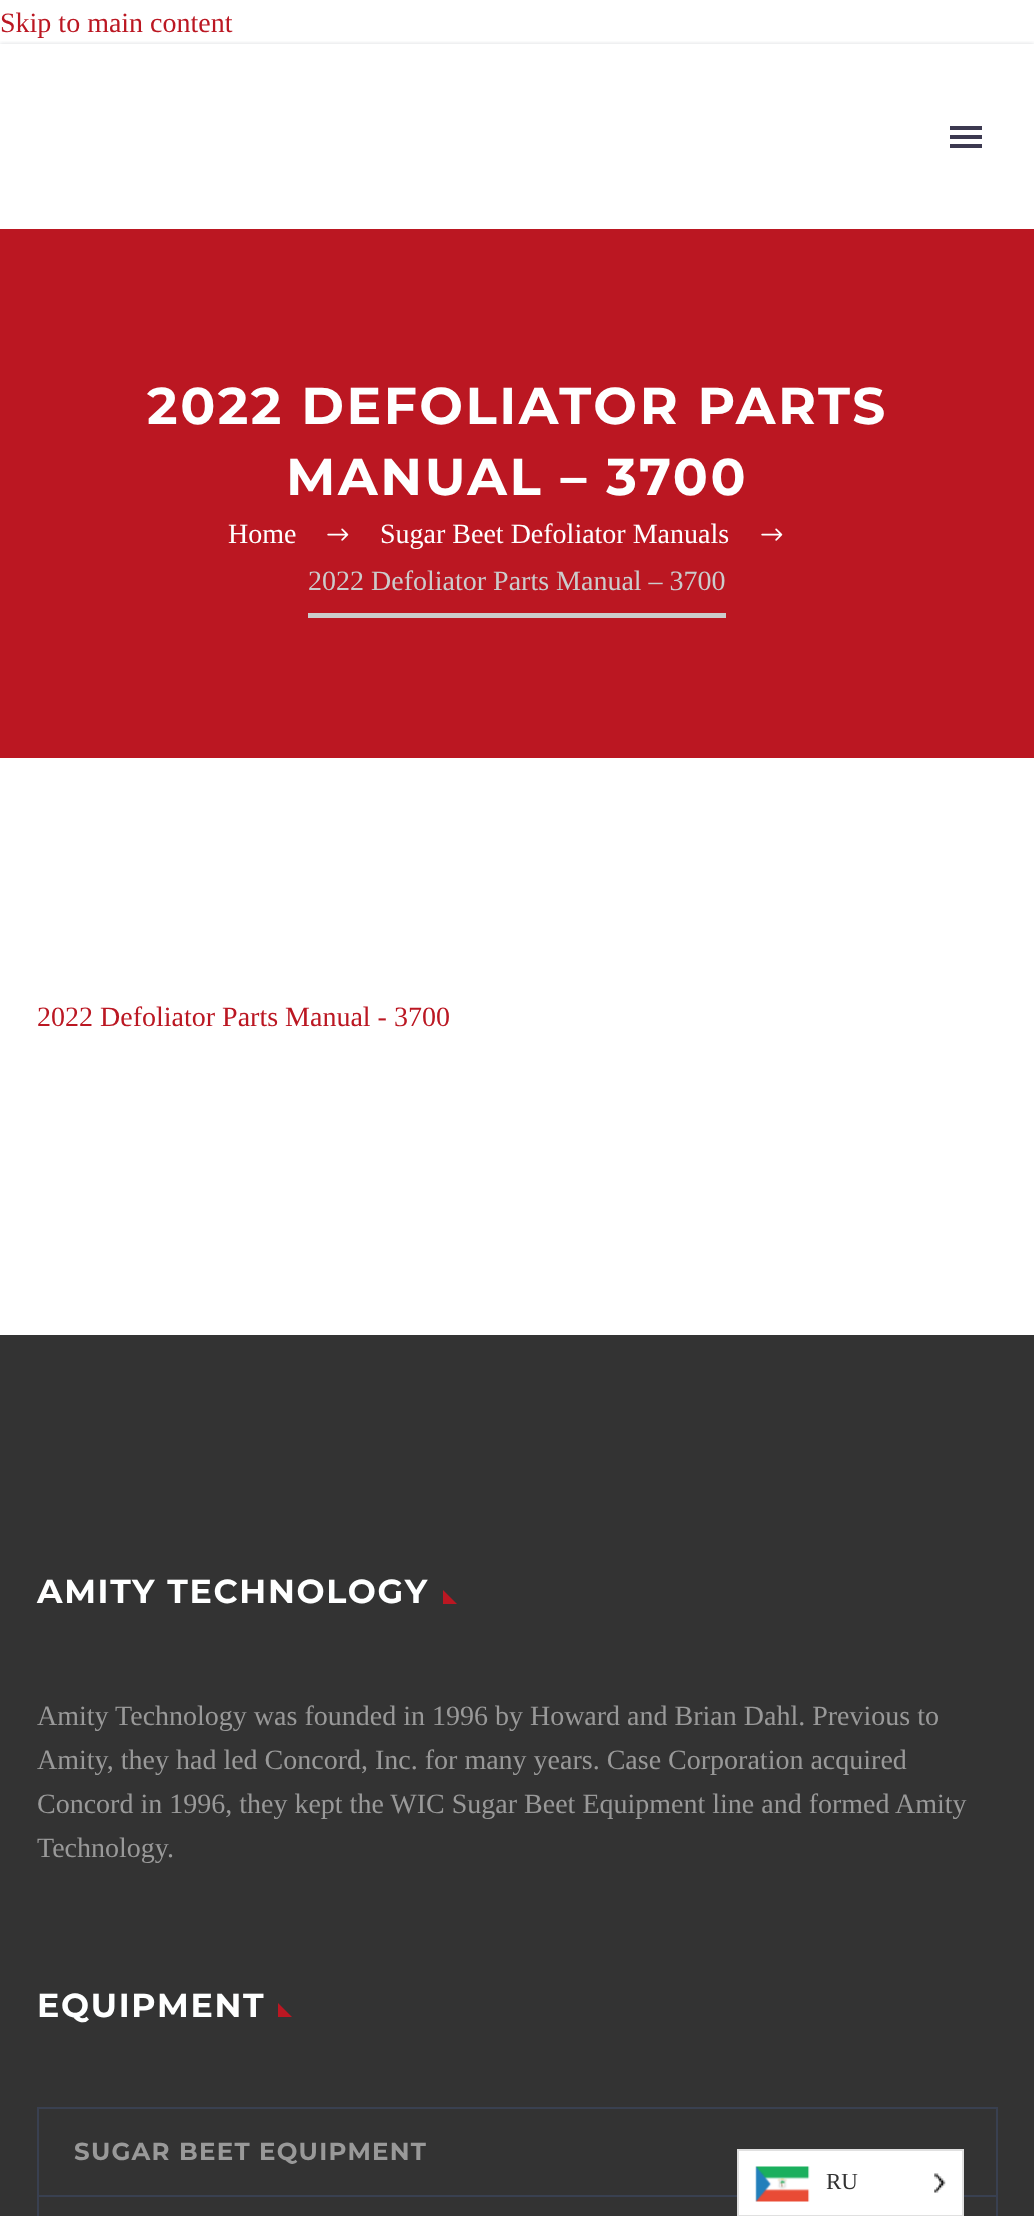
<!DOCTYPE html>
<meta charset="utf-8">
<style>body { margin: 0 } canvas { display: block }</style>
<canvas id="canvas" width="1034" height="2216"></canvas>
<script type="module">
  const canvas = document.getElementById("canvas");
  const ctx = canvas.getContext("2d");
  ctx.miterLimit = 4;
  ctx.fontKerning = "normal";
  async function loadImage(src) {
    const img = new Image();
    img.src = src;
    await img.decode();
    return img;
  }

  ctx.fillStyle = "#ffffff";
  ctx.fillRect(0, 0, 1034, 2216);
  ctx.save();
  ctx.beginPath();
  ctx.rect(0, 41, 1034, 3);
  ctx.clip();
  ctx.fillStyle = "rgba(56, 69, 84, 0.2)";
  ctx.filter = "blur(2px)";
  ctx.beginPath();
  ctx.rect(0, 44, 1034, 185);
  ctx.fill();
  ctx.filter = "none";
  ctx.restore();
  ctx.font = "28px Liberation Serif";
  ctx.fillStyle = "#bb1722";
  ctx.fillText("Skip to main content", 0, 32);
  ctx.fillStyle = "#3c3950";
  ctx.fillRect(950, 126, 32, 4);
  ctx.fillRect(950, 135, 32, 4);
  ctx.fillRect(950, 144, 32, 4);
  ctx.fillStyle = "#bb1722";
  ctx.fillRect(0, 229, 1034, 529);
  ctx.letterSpacing = "2.6px";
  ctx.font = "bold 51.75px Montserrat";
  ctx.fillStyle = "#feffff";
  ctx.fillText("2022 DEFOLIATOR PARTS", 147, 424);
  ctx.fillText("MANUAL – 3700", 286, 495);
  ctx.letterSpacing = "0px";
  ctx.font = "28px Liberation Serif";
  ctx.fillText("Home", 228, 543);
  ctx.drawImage(await loadImage("img1.png"), 327, 528, 22, 13);
  ctx.fillText("Sugar Beet Defoliator Manuals", 380, 543);
  ctx.drawImage(await loadImage("img1.png"), 761, 528, 22, 13);
  ctx.fillStyle = "#cccccc";
  ctx.fillRect(308, 613, 418, 5);
  ctx.fillText("2022 Defoliator Parts Manual – 3700", 308, 590);
  ctx.fillStyle = "#bb1722";
  ctx.fillText("2022 Defoliator Parts Manual - 3700", 37, 1026);
  ctx.fillStyle = "#333333";
  ctx.fillRect(0, 1335, 1034, 881);
  ctx.letterSpacing = "1.7px";
  ctx.font = "bold 33.25px Montserrat";
  ctx.fillStyle = "#feffff";
  ctx.fillText("AMITY TECHNOLOGY", 37, 1603);
  ctx.fillStyle = "#bb1722";
  ctx.beginPath();
  ctx.moveTo(443, 1590);
  ctx.lineTo(443, 1604);
  ctx.lineTo(457, 1604);
  ctx.closePath();
  ctx.fill();
  ctx.letterSpacing = "0px";
  ctx.font = "28px Liberation Serif";
  ctx.fillStyle = "#999999";
  ctx.fillText("Amity Technology was founded in 1996 by Howard and Brian Dahl. Previous to", 37, 1725);
  ctx.fillText("Amity, they had led Concord, Inc. for many years. Case Corporation acquired", 37, 1769);
  ctx.fillText("Concord in 1996, they kept the WIC Sugar Beet Equipment line and formed Amity", 37, 1813);
  ctx.fillText("Technology.", 37, 1857);
  ctx.letterSpacing = "1.7px";
  ctx.font = "bold 33.25px Montserrat";
  ctx.fillStyle = "#feffff";
  ctx.fillText("EQUIPMENT", 37, 2017);
  ctx.fillStyle = "#bb1722";
  ctx.beginPath();
  ctx.moveTo(278, 2003);
  ctx.lineTo(278, 2017);
  ctx.lineTo(292, 2017);
  ctx.closePath();
  ctx.fill();
  ctx.fillStyle = "#394050";
  ctx.fillRect(996, 2107, 2, 109);
  ctx.fillRect(37, 2107, 2, 109);
  ctx.fillRect(39, 2107, 957, 2);
  ctx.letterSpacing = "1.25px";
  ctx.font = "bold 24.5px Montserrat";
  ctx.fillStyle = "#999999";
  ctx.fillText("SUGAR BEET EQUIPMENT", 74, 2160);
  ctx.fillStyle = "#394050";
  ctx.fillRect(39, 2195, 957, 2);
  ctx.fillStyle = "#ffffff";
  ctx.beginPath();
  ctx.rect(738, 2150, 225, 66);
  ctx.fill();
  ctx.strokeStyle = "#e0e0e0";
  ctx.lineWidth = 2;
  ctx.stroke();
  ctx.drawImage(await loadImage("img2.png"), 755, 2166, 55, 36);
  ctx.letterSpacing = "0px";
  ctx.font = "23px Liberation Serif";
  ctx.fillStyle = "#333333";
  ctx.fillText("RU", 826, 2189);
  ctx.drawImage(await loadImage("img3.png"), 934, 2173, 12, 20);
</script>
